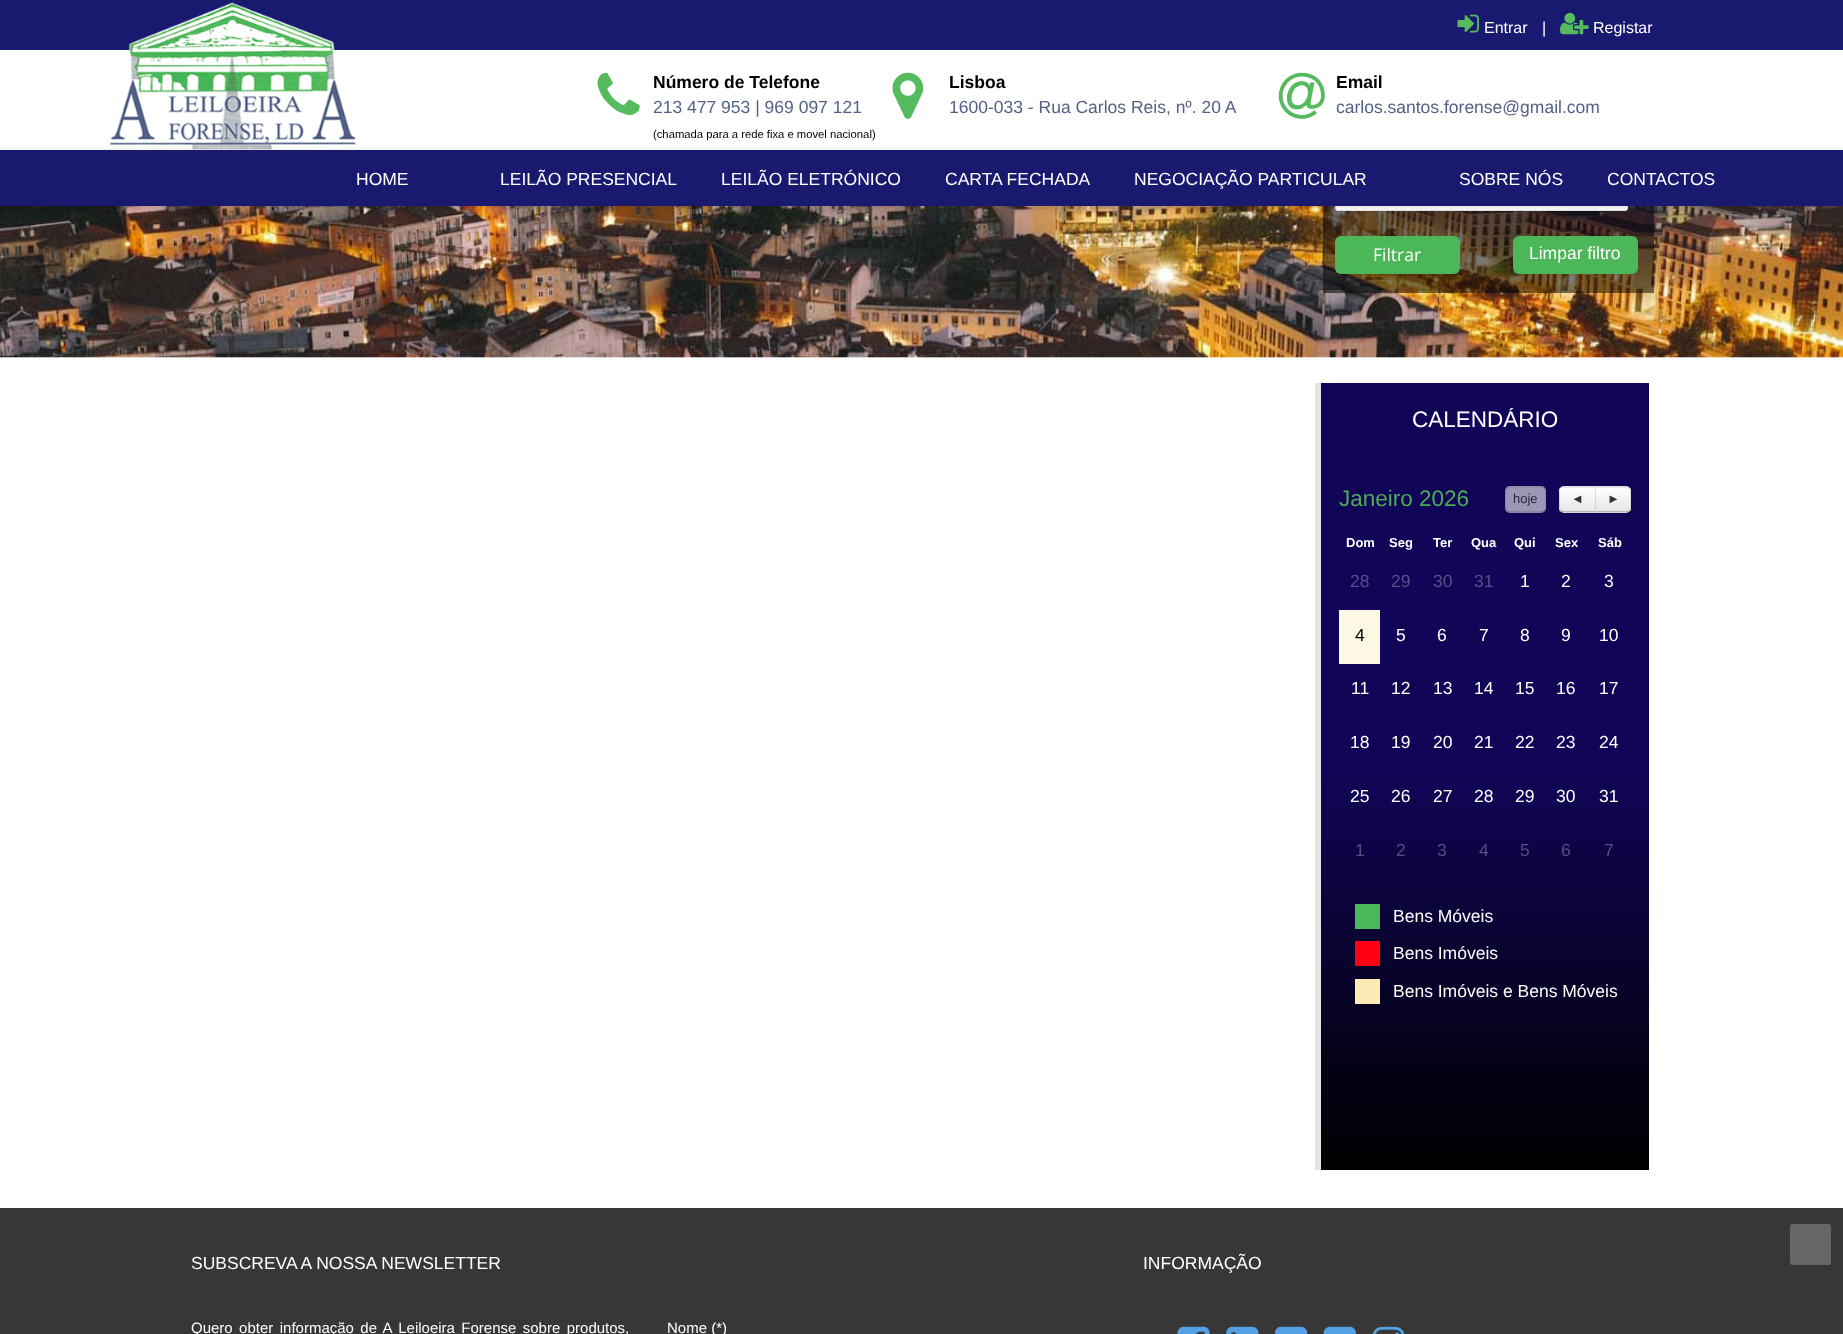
<!DOCTYPE html>
<meta charset="utf-8">
<style>body { margin: 0 } canvas { display: block }</style>
<canvas id="canvas" width="1843" height="1334"></canvas>
<script type="module">
  const canvas = document.getElementById("canvas");
  const ctx = canvas.getContext("2d");
  ctx.miterLimit = 4;
  ctx.fontKerning = "normal";
  async function loadImage(src) {
    const img = new Image();
    img.src = src;
    await img.decode();
    return img;
  }
  let gradient;

  ctx.fillStyle = "#ffffff";
  ctx.fillRect(0, 0, 1843, 1334);
  ctx.fillStyle = "#191970";
  ctx.fillRect(0, 0, 1843, 50);
  ctx.drawImage(await loadImage("img1.png"), 1457, 14, 22, 19);
  ctx.font = "16px Liberation Sans";
  ctx.fillStyle = "#ffffff";
  ctx.fillText("Entrar", 1484, 33);
  ctx.fillText("|", 1542, 33);
  ctx.drawImage(await loadImage("img2.png"), 1560, 12, 29, 23);
  ctx.fillText("Registar", 1593, 33);
  ctx.drawImage(await loadImage("img3.png"), 109, 2, 247, 148);
  ctx.drawImage(await loadImage("img4.png"), 597, 72, 43, 43);
  ctx.font = "bold 17.5px Liberation Sans";
  ctx.fillStyle = "#000000";
  ctx.fillText("Número de Telefone", 653, 88);
  ctx.font = "17.5px Liberation Sans";
  ctx.fillStyle = "#536186";
  ctx.fillText("213 477 953 | 969 097 121", 653, 113);
  ctx.font = "11.25px Liberation Sans";
  ctx.fillStyle = "#000000";
  ctx.fillText("(chamada para a rede fixa e movel nacional)", 653, 138);
  ctx.drawImage(await loadImage("img5.png"), 892, 72, 32, 47);
  ctx.font = "bold 17.5px Liberation Sans";
  ctx.fillText("Lisboa", 949, 88);
  ctx.font = "17.5px Liberation Sans";
  ctx.fillStyle = "#536186";
  ctx.fillText("1600-033 - Rua Carlos Reis, nº. 20 A", 949, 113);
  ctx.drawImage(await loadImage("img6.png"), 1278, 72, 47, 47);
  ctx.font = "bold 17.5px Liberation Sans";
  ctx.fillStyle = "#000000";
  ctx.fillText("Email", 1336, 88);
  ctx.font = "17.5px Liberation Sans";
  ctx.fillStyle = "#536186";
  ctx.fillText("carlos.santos.forense@gmail.com", 1336, 113);
  ctx.drawImage(await loadImage("img7.png"), 0, 206, 1843, 152);
  ctx.fillStyle = "#ffffff";
  ctx.beginPath();
  ctx.roundRect(1335.5, 174.5, 292, 36, 2);
  ctx.fill();
  ctx.strokeStyle = "#e5e5e5";
  ctx.stroke();
  ctx.fillStyle = "rgba(0, 0, 0, 0.1)";
  ctx.filter = "blur(3px)";
  ctx.beginPath();
  ctx.rect(-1, 150, 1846, 59);
  ctx.fill();
  ctx.filter = "none";
  ctx.fillStyle = "#191970";
  ctx.fillRect(0, 150, 1843, 56);
  ctx.fillStyle = "#ffffff";
  ctx.fillText("HOME", 356, 185);
  ctx.fillText("LEILÃO PRESENCIAL", 500, 185);
  ctx.fillText("LEILÃO ELETRÓNICO", 721, 185);
  ctx.fillText("CARTA FECHADA", 945, 185);
  ctx.fillText("NEGOCIAÇÃO PARTICULAR", 1134, 185);
  ctx.fillText("SOBRE NÓS", 1459, 185);
  ctx.fillText("CONTACTOS", 1607, 185);
  ctx.fillStyle = "rgba(0, 0, 0, 0.05)";
  ctx.beginPath();
  ctx.moveTo(1337, 272);
  ctx.bezierCurveTo(1338, 274, 1340, 275, 1342, 275);
  ctx.lineTo(1455, 275);
  ctx.bezierCurveTo(1458, 275, 1461, 272, 1461, 269);
  ctx.lineTo(1461, 244);
  ctx.bezierCurveTo(1461, 242, 1460, 241, 1459, 240);
  ctx.lineTo(1460, 242);
  ctx.lineTo(1460, 268);
  ctx.bezierCurveTo(1460, 271, 1457, 274, 1454, 274);
  ctx.lineTo(1341, 274);
  ctx.bezierCurveTo(1339, 274, 1338, 273, 1337, 272);
  ctx.closePath();
  ctx.fill();
  ctx.fillStyle = "#4bb759";
  ctx.beginPath();
  ctx.roundRect(1335, 236, 125, 38, 6);
  ctx.fill();
  ctx.font = "17.5px Open Sans";
  ctx.fillStyle = "#ffffff";
  ctx.fillText("Filtrar", 1373, 261);
  ctx.fillStyle = "#4bb759";
  ctx.beginPath();
  ctx.roundRect(1513, 236, 125, 38, 6);
  ctx.fill();
  ctx.font = "17.5px Liberation Sans";
  ctx.fillStyle = "#ffffff";
  ctx.fillText("Limpar filtro", 1529, 259);
  gradient = ctx.createLinearGradient(1485, 383, 1485, 1170);
  gradient.addColorStop(0.5, "#100556");
  gradient.addColorStop(1, "#000000");
  ctx.fillStyle = gradient;
  ctx.fillRect(1321, 383, 328, 787);
  ctx.fillStyle = "#e5e5e5";
  ctx.fillRect(1315, 383, 6, 787);
  ctx.save();
  ctx.beginPath();
  ctx.rect(1339, 408, 292, 47);
  ctx.clip();
  ctx.font = "22.5px Liberation Sans";
  ctx.fillStyle = "#ffffff";
  ctx.fillText("CALENDÁRIO", 1412, 427);
  ctx.restore();
  ctx.font = "22.5px Liberation Sans";
  ctx.fillStyle = "#4eaa56";
  ctx.fillText("Janeiro 2026", 1339, 506);
  ctx.fillStyle = "#9b97b4";
  ctx.beginPath();
  ctx.roundRect(1505, 486, 41, 27, 5);
  ctx.fill();
  ctx.beginPath();
  ctx.moveTo(1544.5, 510.5);
  ctx.bezierCurveTo(1543.5, 511.5, 1542.5, 512, 1541, 512);
  ctx.lineTo(1510, 512);
  ctx.bezierCurveTo(1509, 512, 1507.5, 511.5, 1507, 510.5);
  ctx.strokeStyle = "rgba(6, 2, 30, 0.25)";
  ctx.lineWidth = 1.2;
  ctx.stroke();
  ctx.beginPath();
  ctx.moveTo(1507, 510.5);
  ctx.bezierCurveTo(1504.5, 508, 1505.5, 502.5, 1505.5, 499.5);
  ctx.lineTo(1505.5, 490.5);
  ctx.bezierCurveTo(1506.5, 486, 1512, 487, 1515, 487);
  ctx.lineTo(1536, 487);
  ctx.bezierCurveTo(1539.5, 487, 1544.5, 486, 1545.5, 490.5);
  ctx.lineTo(1545.5, 499.5);
  ctx.bezierCurveTo(1545.5, 502.5, 1547, 508, 1544.5, 510.5);
  ctx.strokeStyle = "rgba(6, 2, 30, 0.1)";
  ctx.stroke();
  ctx.font = "13px Liberation Sans";
  ctx.fillStyle = "#27233f";
  ctx.fillText("hoje", 1513, 503);
  ctx.fillStyle = "#f5f5f5";
  ctx.beginPath();
  ctx.roundRect(1559, 486, 37, 27, [5, 0, 0, 5]);
  ctx.fill();
  ctx.save();
  ctx.beginPath();
  ctx.roundRect(1559, 486, 37, 27, [5, 0, 0, 5]);
  ctx.clip();
  gradient = ctx.createLinearGradient(1578, 488, 1578, 511);
  gradient.addColorStop(0, "#ffffff");
  gradient.addColorStop(1, "#e6e6e6");
  ctx.fillStyle = gradient;
  ctx.fillRect(1559, 488, 36, 23);
  ctx.restore();
  ctx.fillStyle = "rgba(0, 0, 0, 0.1)";
  ctx.beginPath();
  ctx.moveTo(1564, 487.5);
  ctx.bezierCurveTo(1562.5, 487.5, 1561.5, 488, 1561, 488.5);
  ctx.lineTo(1560, 487.5);
  ctx.lineTo(1562.5, 486);
  ctx.lineTo(1596, 486);
  ctx.lineTo(1595, 487.5);
  ctx.closePath();
  ctx.fill();
  ctx.fillStyle = "rgba(0, 0, 0, 0.25)";
  ctx.beginPath();
  ctx.moveTo(1564, 512.5);
  ctx.lineTo(1596, 512.5);
  ctx.lineTo(1595, 511);
  ctx.lineTo(1564, 511);
  ctx.bezierCurveTo(1563, 511, 1562, 510.5, 1561, 510);
  ctx.lineTo(1560.5, 511);
  ctx.bezierCurveTo(1561, 512, 1562.5, 512.5, 1564, 512.5);
  ctx.closePath();
  ctx.fill();
  ctx.fillStyle = "rgba(0, 0, 0, 0.1)";
  ctx.beginPath();
  ctx.moveTo(1560.5, 511);
  ctx.bezierCurveTo(1559.5, 510, 1559, 509, 1559, 507.5);
  ctx.lineTo(1559, 491);
  ctx.bezierCurveTo(1559, 490, 1559.5, 488.5, 1560, 487.5);
  ctx.lineTo(1561, 488.5);
  ctx.bezierCurveTo(1560.5, 489, 1560, 490, 1560, 491);
  ctx.lineTo(1560, 507.5);
  ctx.bezierCurveTo(1560, 508.5, 1560.5, 509.5, 1561, 510);
  ctx.closePath();
  ctx.fill();
  ctx.fillStyle = "#333333";
  ctx.fillText("◄", 1571, 503);
  ctx.fillStyle = "#f5f5f5";
  ctx.beginPath();
  ctx.roundRect(1595, 486, 36, 27, [0, 5, 5, 0]);
  ctx.fill();
  ctx.save();
  ctx.beginPath();
  ctx.roundRect(1595, 486, 36, 27, [0, 5, 5, 0]);
  ctx.clip();
  gradient = ctx.createLinearGradient(1613, 488, 1613, 511);
  gradient.addColorStop(0, "#ffffff");
  gradient.addColorStop(1, "#e6e6e6");
  ctx.fillStyle = gradient;
  ctx.fillRect(1595, 488, 36, 23);
  ctx.restore();
  ctx.fillStyle = "rgba(0, 0, 0, 0.1)";
  ctx.beginPath();
  ctx.moveTo(1595, 486);
  ctx.lineTo(1627.5, 486);
  ctx.lineTo(1630, 487.5);
  ctx.lineTo(1629, 488.5);
  ctx.bezierCurveTo(1628.5, 488, 1627.5, 487.5, 1626, 487.5);
  ctx.lineTo(1596, 487.5);
  ctx.closePath();
  ctx.fill();
  ctx.beginPath();
  ctx.moveTo(1630, 487.5);
  ctx.bezierCurveTo(1630.5, 488.5, 1631, 490, 1631, 491);
  ctx.lineTo(1631, 507.5);
  ctx.bezierCurveTo(1631, 509, 1630.5, 510, 1629.5, 511);
  ctx.lineTo(1629, 510);
  ctx.bezierCurveTo(1629.5, 509.5, 1630, 508.5, 1630, 507.5);
  ctx.lineTo(1630, 491);
  ctx.bezierCurveTo(1630, 490, 1629.5, 489, 1629, 488.5);
  ctx.closePath();
  ctx.fill();
  ctx.fillStyle = "rgba(0, 0, 0, 0.25)";
  ctx.beginPath();
  ctx.moveTo(1626, 512.5);
  ctx.bezierCurveTo(1627.5, 512.5, 1629, 512, 1629.5, 511);
  ctx.lineTo(1629, 510);
  ctx.bezierCurveTo(1628, 510.5, 1627, 511, 1626, 511);
  ctx.lineTo(1596.5, 511);
  ctx.lineTo(1595, 512.5);
  ctx.closePath();
  ctx.fill();
  ctx.fillStyle = "rgba(0, 0, 0, 0.1)";
  ctx.beginPath();
  ctx.moveTo(1596, 487.5);
  ctx.lineTo(1595, 486);
  ctx.lineTo(1595, 512.5);
  ctx.lineTo(1596.5, 511);
  ctx.lineTo(1596, 511);
  ctx.closePath();
  ctx.fill();
  ctx.fillStyle = "#333333";
  ctx.fillText("►", 1607, 503);
  ctx.font = "bold 13px Liberation Sans";
  ctx.fillStyle = "#ffffff";
  ctx.fillText("Dom", 1346, 547);
  ctx.fillText("Seg", 1389, 547);
  ctx.fillText("Ter", 1433, 547);
  ctx.fillText("Qua", 1471, 547);
  ctx.fillText("Qui", 1514, 547);
  ctx.fillText("Sex", 1555, 547);
  ctx.fillText("Sáb", 1598, 547);
  ctx.font = "17.5px Liberation Sans";
  ctx.fillStyle = "#585089";
  ctx.fillText("28", 1350, 587);
  ctx.fillText("29", 1391, 587);
  ctx.fillText("30", 1433, 587);
  ctx.fillText("31", 1474, 587);
  ctx.fillStyle = "#ffffff";
  ctx.fillText("1", 1520, 587);
  ctx.fillText("2", 1561, 587);
  ctx.fillText("3", 1604, 587);
  ctx.fillStyle = "#fcf8e3";
  ctx.fillRect(1339, 610, 41, 54);
  ctx.fillStyle = "#000000";
  ctx.fillText("4", 1355, 641);
  ctx.fillStyle = "#ffffff";
  ctx.fillText("5", 1396, 641);
  ctx.fillText("6", 1437, 641);
  ctx.fillText("7", 1479, 641);
  ctx.fillText("8", 1520, 641);
  ctx.fillText("9", 1561, 641);
  ctx.fillText("10", 1599, 641);
  ctx.fillText("11", 1351, 694);
  ctx.fillText("12", 1391, 694);
  ctx.fillText("13", 1433, 694);
  ctx.fillText("14", 1474, 694);
  ctx.fillText("15", 1515, 694);
  ctx.fillText("16", 1556, 694);
  ctx.fillText("17", 1599, 694);
  ctx.fillText("18", 1350, 748);
  ctx.fillText("19", 1391, 748);
  ctx.fillText("20", 1433, 748);
  ctx.fillText("21", 1474, 748);
  ctx.fillText("22", 1515, 748);
  ctx.fillText("23", 1556, 748);
  ctx.fillText("24", 1599, 748);
  ctx.fillText("25", 1350, 802);
  ctx.fillText("26", 1391, 802);
  ctx.fillText("27", 1433, 802);
  ctx.fillText("28", 1474, 802);
  ctx.fillText("29", 1515, 802);
  ctx.fillText("30", 1556, 802);
  ctx.fillText("31", 1599, 802);
  ctx.fillStyle = "#564f7d";
  ctx.fillText("1", 1355, 856);
  ctx.fillText("2", 1396, 856);
  ctx.fillText("3", 1437, 856);
  ctx.fillText("4", 1479, 856);
  ctx.fillText("5", 1520, 856);
  ctx.fillText("6", 1561, 856);
  ctx.fillText("7", 1604, 856);
  ctx.fillStyle = "#4bb759";
  ctx.fillRect(1355, 904, 25, 25);
  ctx.fillStyle = "#ffffff";
  ctx.fillText("Bens Móveis", 1393, 922);
  ctx.fillStyle = "#ff0014";
  ctx.fillRect(1355, 941, 25, 25);
  ctx.fillStyle = "#ffffff";
  ctx.fillText("Bens Imóveis", 1393, 959);
  ctx.fillStyle = "#feeab5";
  ctx.fillRect(1355, 979, 25, 25);
  ctx.fillStyle = "#ffffff";
  ctx.fillText("Bens Imóveis e Bens Móveis", 1393, 997);
  ctx.fillStyle = "#373737";
  ctx.fillRect(0, 1208, 1843, 126);
  ctx.fillStyle = "#ffffff";
  ctx.fillText("SUBSCREVA A NOSSA NEWSLETTER", 191, 1269);
  ctx.wordSpacing = "2.25px";
  ctx.font = "15px Liberation Sans";
  ctx.fillText("Quero obter informação de A Leiloeira Forense sobre produtos,", 191, 1333);
  ctx.wordSpacing = "0px";
  ctx.fillText("Nome (*)", 667, 1333);
  ctx.font = "17.5px Liberation Sans";
  ctx.fillText("INFORMAÇÃO", 1143, 1269);
  ctx.drawImage(await loadImage("img8.png"), 1177, 1326, 33, 8);
  ctx.drawImage(await loadImage("img9.png"), 1226, 1326, 33, 8);
  ctx.drawImage(await loadImage("img10.png"), 1275, 1326, 33, 8);
  ctx.drawImage(await loadImage("img11.png"), 1323, 1326, 33, 8);
  ctx.drawImage(await loadImage("img12.png"), 1372, 1326, 33, 8);
  ctx.fillStyle = "#666666";
  ctx.beginPath();
  ctx.roundRect(1790, 1224, 41, 41, 2.5);
  ctx.fill();
</script>
